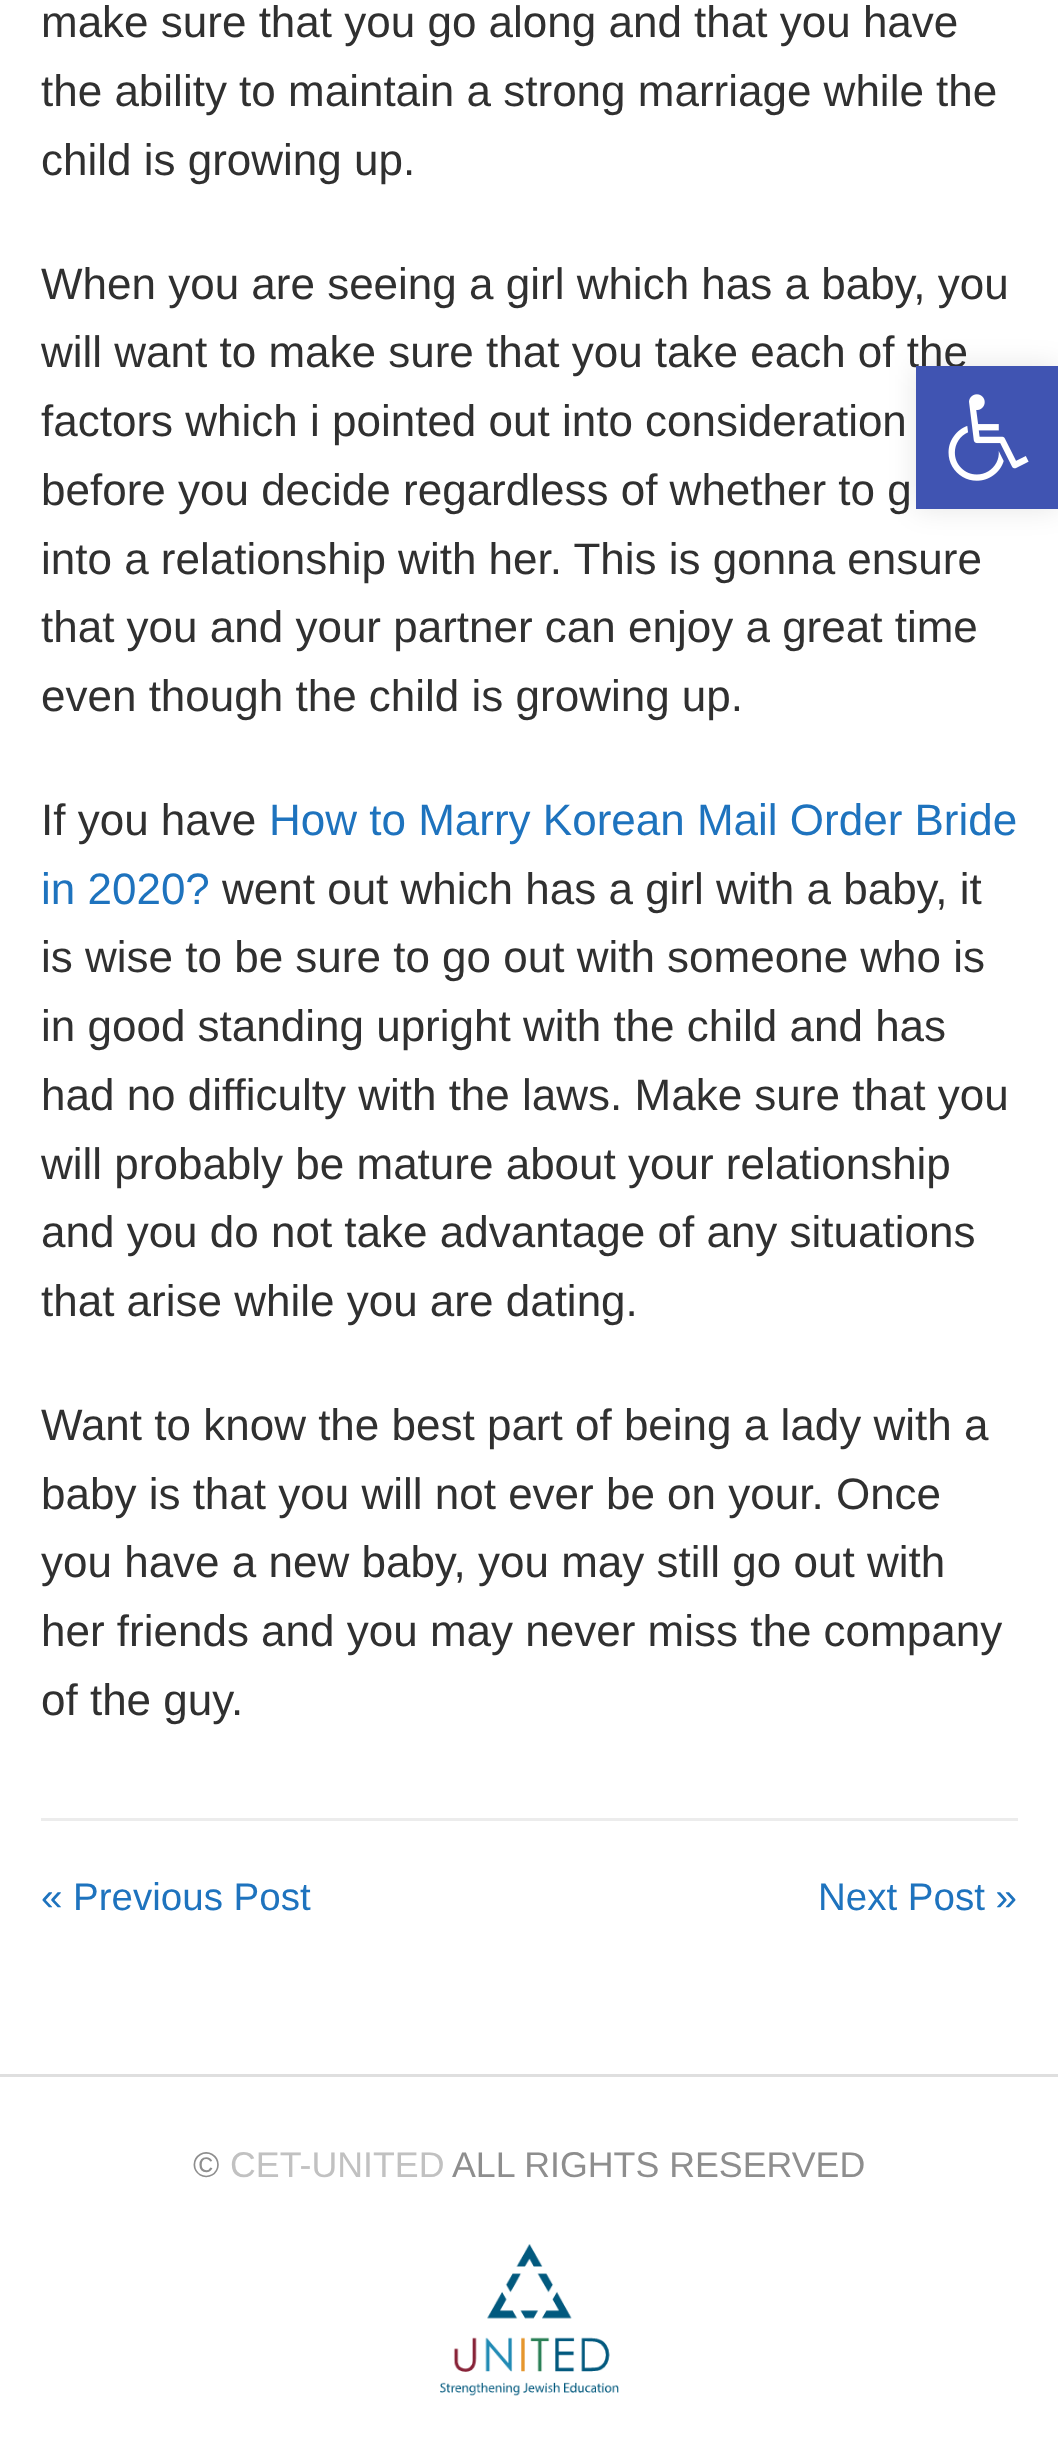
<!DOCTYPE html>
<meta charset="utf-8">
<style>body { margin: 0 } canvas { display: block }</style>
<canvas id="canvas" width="1058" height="2450"></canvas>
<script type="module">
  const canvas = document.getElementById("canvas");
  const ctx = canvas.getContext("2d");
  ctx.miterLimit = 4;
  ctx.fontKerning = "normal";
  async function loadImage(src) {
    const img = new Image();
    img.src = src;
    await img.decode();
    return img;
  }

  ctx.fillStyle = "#ffffff";
  ctx.fillRect(0, 0, 1058, 2450);
  ctx.font = "44px Liberation Sans";
  ctx.fillStyle = "#303030";
  ctx.fillText("make sure that you go along and that you have", 41, 37);
  ctx.fillText("the ability to maintain a strong marriage while the", 41, 106);
  ctx.fillText("child is growing up.", 41, 175);
  ctx.fillText("When you are seeing a girl which has a baby, you", 41, 299);
  ctx.fillText("will want to make sure that you take each of the", 41, 367);
  ctx.fillText("factors which i pointed out into consideration", 41, 436);
  ctx.fillText("before you decide regardless of whether to g", 41, 505);
  ctx.fillText("into a relationship with her. This is gonna ensure", 41, 574);
  ctx.fillText("that you and your partner can enjoy a great time", 41, 642);
  ctx.fillText("even though the child is growing up.", 41, 711);
  ctx.fillText("If you have", 41, 835);
  ctx.fillStyle = "#1e73be";
  ctx.fillText("How to Marry Korean Mail Order Bride", 269, 835);
  ctx.fillText("in 2020?", 41, 904);
  ctx.fillStyle = "#303030";
  ctx.fillText("went out which has a girl with a baby, it", 222, 904);
  ctx.fillText("is wise to be sure to go out with someone who is", 41, 972);
  ctx.fillText("in good standing upright with the child and has", 41, 1041);
  ctx.fillText("had no difficulty with the laws. Make sure that you", 41, 1110);
  ctx.fillText("will probably be mature about your relationship", 41, 1179);
  ctx.fillText("and you do not take advantage of any situations", 41, 1247);
  ctx.fillText("that arise while you are dating.", 41, 1316);
  ctx.fillText("Want to know the best part of being a lady with a", 41, 1440);
  ctx.fillText("baby is that you will not ever be on your. Once", 41, 1509);
  ctx.fillText("you have a new baby, you may still go out with", 41, 1577);
  ctx.fillText("her friends and you may never miss the company", 41, 1646);
  ctx.fillText("of the guy.", 41, 1715);
  ctx.fillStyle = "#ececec";
  ctx.fillRect(41, 1818, 977, 3);
  ctx.font = "38.5px Liberation Sans";
  ctx.fillStyle = "#1e73be";
  ctx.fillText("« Previous Post", 41, 1910);
  ctx.fillText("Next Post »", 818, 1910);
  ctx.fillStyle = "#dfdfdf";
  ctx.fillRect(0, 2074, 1058, 3);
  ctx.font = "35.75px Liberation Sans";
  ctx.fillStyle = "#8e8e8e";
  ctx.fillText("©", 193, 2177);
  ctx.fillStyle = "#c1c1c1";
  ctx.fillText("CET-UNITED", 230, 2177);
  ctx.fillStyle = "#8e8e8e";
  ctx.fillText("ALL RIGHTS RESERVED", 452, 2177);
  ctx.drawImage(await loadImage("img1.png"), 440, 2244, 179, 152);
  ctx.fillStyle = "rgba(0, 0, 0, 0.1)";
  ctx.filter = "blur(14px)";
  ctx.beginPath();
  ctx.rect(916, 366, 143, 143);
  ctx.fill();
  ctx.filter = "none";
  ctx.fillStyle = "#4054b2";
  ctx.fillRect(916, 366, 142, 143);
  ctx.drawImage(await loadImage("img2.png"), 948, 394, 81, 87);
</script>
